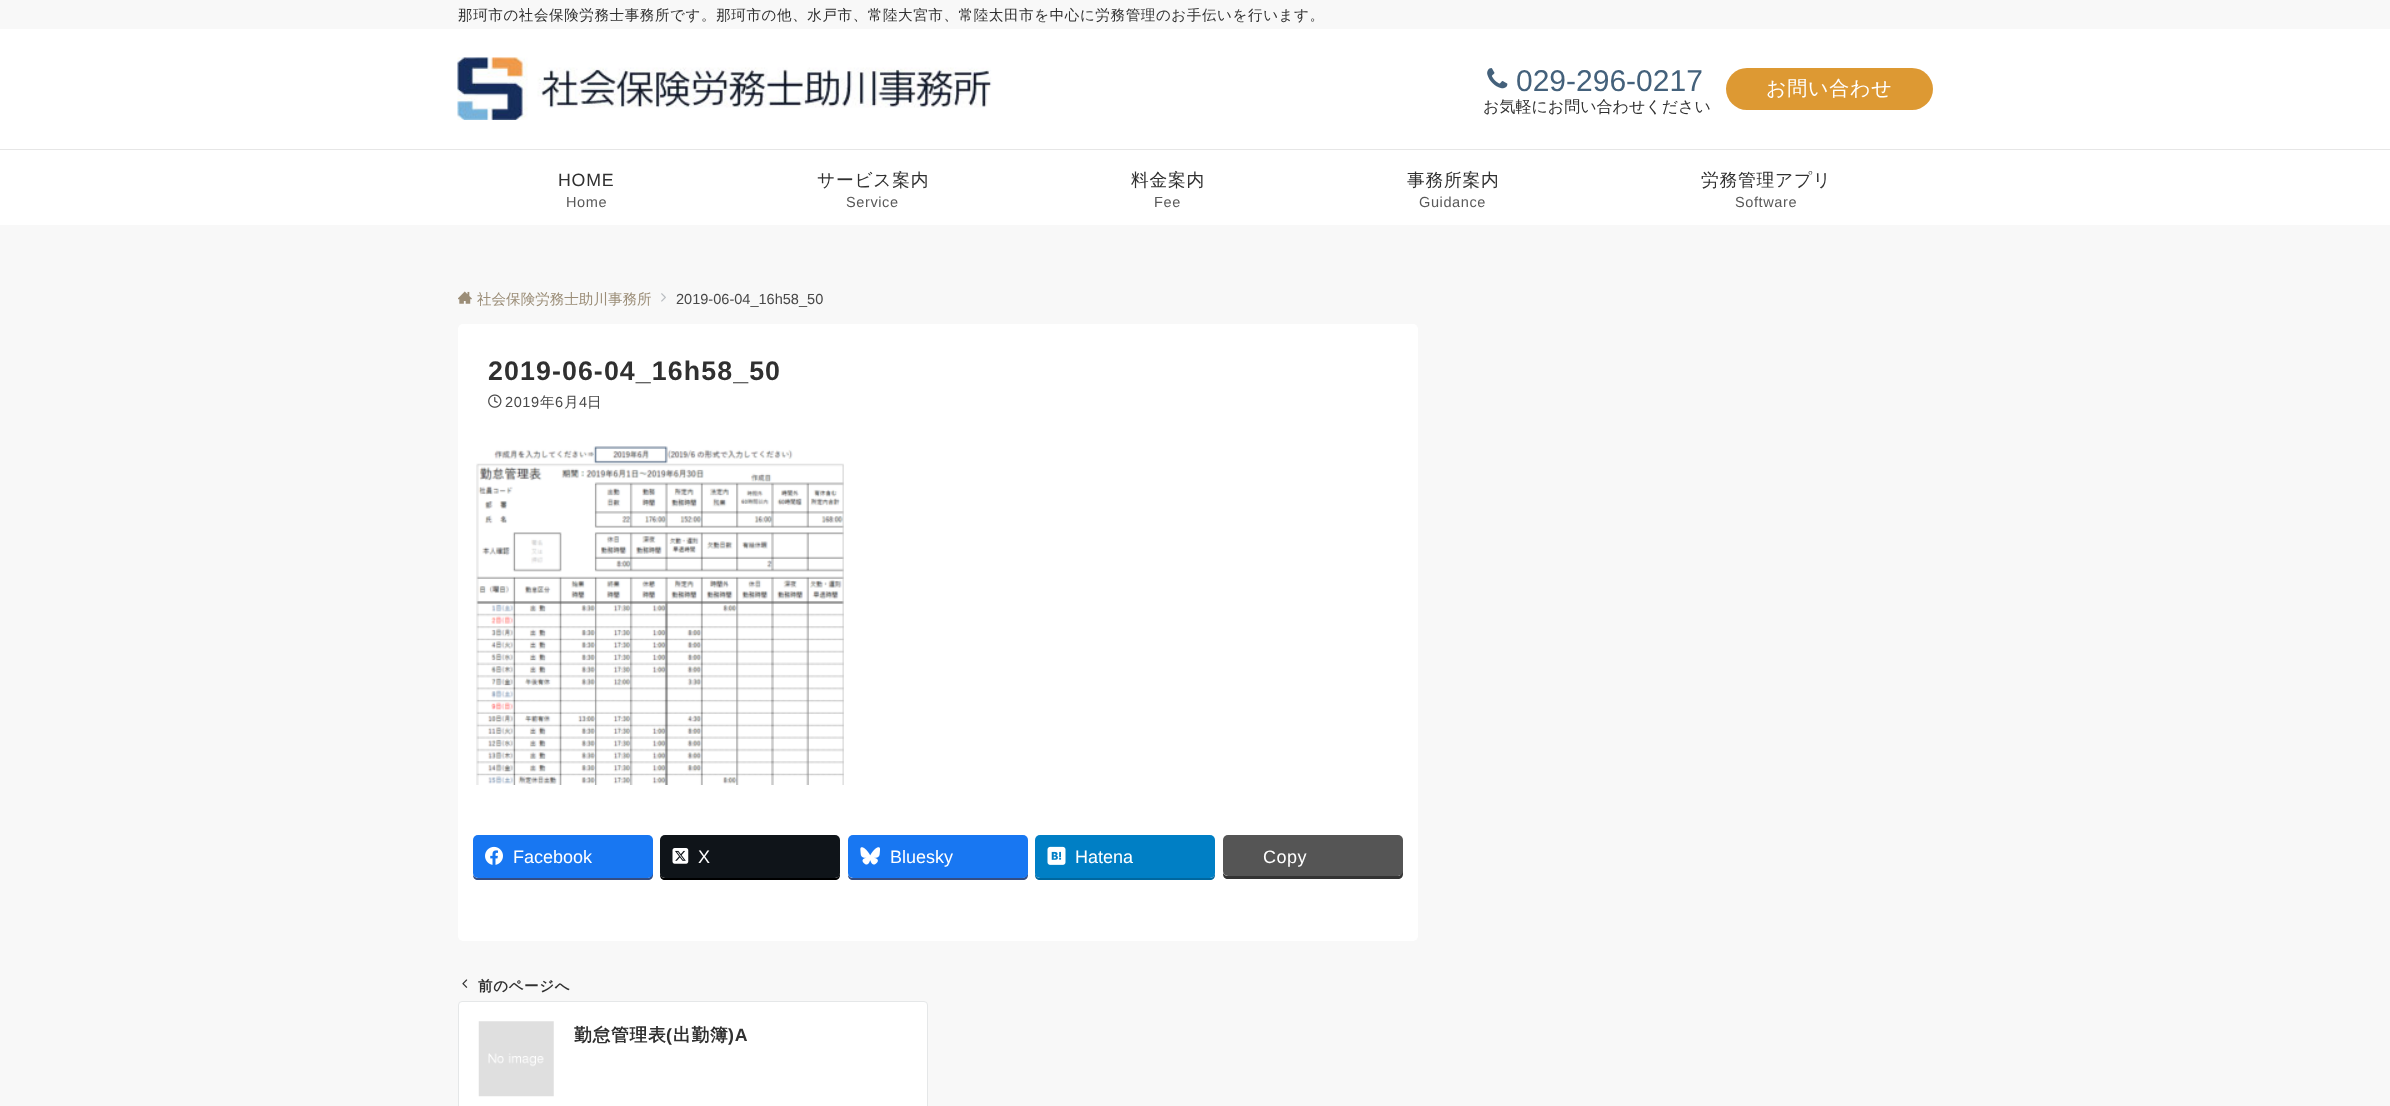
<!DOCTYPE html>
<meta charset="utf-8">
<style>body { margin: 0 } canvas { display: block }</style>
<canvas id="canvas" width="2390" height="1106"></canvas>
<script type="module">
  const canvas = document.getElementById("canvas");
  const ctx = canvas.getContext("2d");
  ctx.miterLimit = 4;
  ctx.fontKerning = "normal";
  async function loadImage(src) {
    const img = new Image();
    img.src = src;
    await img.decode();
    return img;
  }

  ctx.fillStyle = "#f8f8f8";
  ctx.fillRect(0, 0, 2390, 1106);
  ctx.letterSpacing = "0.58px";
  ctx.font = "500 14.55px WenQuanYi Zen Hei";
  ctx.fillStyle = "#303030";
  ctx.fillText("那珂市の社会保険労務士事務所です。那珂市の他、水戸市、常陸大宮市、常陸太田市を中心に労務管理のお手伝いを行います。", 458, 20);
  ctx.fillStyle = "#ffffff";
  ctx.fillRect(0, 29, 2390, 120);
  ctx.fillStyle = "#e6e6e6";
  ctx.fillRect(0, 149, 2390, 1);
  ctx.drawImage(await loadImage("img1.png"), 457, 57, 535, 63);
  ctx.drawImage(await loadImage("img2.png"), 1487, 68, 21, 21);
  ctx.letterSpacing = "0px";
  ctx.font = "30px Liberation Sans";
  ctx.fillStyle = "#44617b";
  ctx.fillText("029-296-0217", 1516, 91);
  ctx.font = "500 16px WenQuanYi Zen Hei";
  ctx.fillStyle = "#303030";
  ctx.fillText("お気軽にお問い合わせください", 1483, 112);
  ctx.fillStyle = "#dd9933";
  ctx.beginPath();
  ctx.roundRect(1726, 68, 207, 42, 21);
  ctx.fill();
  ctx.letterSpacing = "0.75px";
  ctx.font = "500 20px WenQuanYi Zen Hei";
  ctx.fillStyle = "#ffffff";
  ctx.fillText("お問い合わせ", 1766, 95);
  ctx.fillRect(0, 150, 2390, 75);
  ctx.font = "17.75px Liberation Sans";
  ctx.fillStyle = "#303030";
  ctx.fillText("HOME", 558, 186);
  ctx.letterSpacing = "0.58px";
  ctx.font = "14.55px Liberation Sans";
  ctx.fillStyle = "#595959";
  ctx.fillText("Home", 566, 207);
  ctx.letterSpacing = "0.75px";
  ctx.font = "500 17.75px WenQuanYi Zen Hei";
  ctx.fillStyle = "#303030";
  ctx.fillText("サービス案内", 817, 186);
  ctx.letterSpacing = "0.58px";
  ctx.font = "14.55px Liberation Sans";
  ctx.fillStyle = "#595959";
  ctx.fillText("Service", 846, 207);
  ctx.letterSpacing = "0.75px";
  ctx.font = "500 17.75px WenQuanYi Zen Hei";
  ctx.fillStyle = "#303030";
  ctx.fillText("料金案内", 1131, 186);
  ctx.letterSpacing = "0.58px";
  ctx.font = "14.55px Liberation Sans";
  ctx.fillStyle = "#595959";
  ctx.fillText("Fee", 1154, 207);
  ctx.letterSpacing = "0.75px";
  ctx.font = "500 17.75px WenQuanYi Zen Hei";
  ctx.fillStyle = "#303030";
  ctx.fillText("事務所案内", 1407, 186);
  ctx.letterSpacing = "0.58px";
  ctx.font = "14.55px Liberation Sans";
  ctx.fillStyle = "#595959";
  ctx.fillText("Guidance", 1419, 207);
  ctx.letterSpacing = "0.75px";
  ctx.font = "500 17.75px WenQuanYi Zen Hei";
  ctx.fillStyle = "#303030";
  ctx.fillText("労務管理アプリ", 1701, 186);
  ctx.letterSpacing = "0.58px";
  ctx.font = "14.55px Liberation Sans";
  ctx.fillStyle = "#595959";
  ctx.fillText("Software", 1735, 207);
  ctx.drawImage(await loadImage("img3.png"), 458, 291, 14, 13);
  ctx.letterSpacing = "0px";
  ctx.font = "500 14.55px WenQuanYi Zen Hei";
  ctx.fillStyle = "#9b8d77";
  ctx.fillText("社会保険労務士助川事務所", 477, 304);
  ctx.drawImage(await loadImage("img4.png"), 661, 293, 5, 9);
  ctx.font = "14.55px Liberation Sans";
  ctx.fillStyle = "#484848";
  ctx.fillText("2019-06-04_16h58_50", 676, 304);
  ctx.fillStyle = "#ffffff";
  ctx.beginPath();
  ctx.roundRect(458, 324, 960, 617, 5);
  ctx.fill();
  ctx.letterSpacing = "1.1px";
  ctx.font = "bold 26.75px Liberation Sans";
  ctx.fillStyle = "#303030";
  ctx.fillText("2019-06-04_16h58_50", 488, 380);
  ctx.drawImage(await loadImage("img5.png"), 488, 394, 14, 14);
  ctx.letterSpacing = "0.58px";
  ctx.font = "14.55px Liberation Sans";
  ctx.fillStyle = "#484848";
  ctx.fillText("2019", 505, 407);
  ctx.font = "500 14.55px WenQuanYi Zen Hei";
  ctx.fillText("年", 540, 407);
  ctx.font = "14.55px Liberation Sans";
  ctx.fillText("6", 555, 407);
  ctx.font = "500 14.55px WenQuanYi Zen Hei";
  ctx.fillText("月", 564, 407);
  ctx.font = "14.55px Liberation Sans";
  ctx.fillText("4", 579, 407);
  ctx.font = "500 14.55px WenQuanYi Zen Hei";
  ctx.fillText("日", 587, 407);
  ctx.drawImage(await loadImage("img6.png"), 476, 446, 368, 339);
  ctx.fillStyle = "#344e84";
  ctx.beginPath();
  ctx.moveTo(473, 875);
  ctx.bezierCurveTo(473, 878, 475, 880, 478, 880);
  ctx.lineTo(648, 880);
  ctx.bezierCurveTo(651, 880, 653, 878, 653, 875);
  ctx.lineTo(653, 843);
  ctx.lineTo(652, 841);
  ctx.lineTo(652, 872);
  ctx.bezierCurveTo(652, 875, 650, 878, 648, 878);
  ctx.lineTo(478, 878);
  ctx.bezierCurveTo(476, 878, 474, 876, 473, 875);
  ctx.closePath();
  ctx.fill();
  ctx.fillStyle = "#1877f2";
  ctx.beginPath();
  ctx.roundRect(473, 835, 180, 43, 5);
  ctx.fill();
  ctx.drawImage(await loadImage("img7.png"), 485, 846, 18, 19);
  ctx.letterSpacing = "0px";
  ctx.font = "18px Liberation Sans";
  ctx.fillStyle = "#ffffff";
  ctx.fillText("Facebook", 513, 863);
  ctx.fillStyle = "#000000";
  ctx.beginPath();
  ctx.moveTo(660, 872);
  ctx.lineTo(660, 875);
  ctx.bezierCurveTo(660, 878, 662, 880, 665, 880);
  ctx.lineTo(835, 880);
  ctx.bezierCurveTo(838, 880, 840, 878, 840, 875);
  ctx.lineTo(840, 872);
  ctx.bezierCurveTo(840, 875, 838, 878, 835, 878);
  ctx.lineTo(665, 878);
  ctx.bezierCurveTo(662, 878, 660, 875, 660, 872);
  ctx.closePath();
  ctx.fill();
  ctx.fillStyle = "#0f1419";
  ctx.beginPath();
  ctx.roundRect(660, 835, 180, 43, 5);
  ctx.fill();
  ctx.drawImage(await loadImage("img8.png"), 672, 848, 17, 16);
  ctx.fillStyle = "#ffffff";
  ctx.fillText("X", 698, 863);
  ctx.fillStyle = "#344e84";
  ctx.beginPath();
  ctx.moveTo(848, 875);
  ctx.bezierCurveTo(848, 878, 850, 880, 853, 880);
  ctx.lineTo(1023, 880);
  ctx.bezierCurveTo(1026, 880, 1028, 878, 1028, 875);
  ctx.lineTo(1028, 843);
  ctx.lineTo(1028, 841);
  ctx.lineTo(1028, 872);
  ctx.bezierCurveTo(1028, 875, 1025, 878, 1022, 878);
  ctx.lineTo(852, 878);
  ctx.bezierCurveTo(851, 878, 849, 876, 848, 875);
  ctx.closePath();
  ctx.fill();
  ctx.fillStyle = "#1877f2";
  ctx.beginPath();
  ctx.roundRect(848, 835, 180, 43, 5);
  ctx.fill();
  ctx.drawImage(await loadImage("img9.png"), 860, 847, 20, 18);
  ctx.fillStyle = "#ffffff";
  ctx.fillText("Bluesky", 890, 863);
  ctx.fillStyle = "#00679f";
  ctx.beginPath();
  ctx.moveTo(1035, 872);
  ctx.lineTo(1035, 875);
  ctx.bezierCurveTo(1035, 878, 1037, 880, 1040, 880);
  ctx.lineTo(1210, 880);
  ctx.bezierCurveTo(1213, 880, 1215, 878, 1215, 875);
  ctx.lineTo(1215, 872);
  ctx.bezierCurveTo(1215, 875, 1213, 878, 1210, 878);
  ctx.lineTo(1040, 878);
  ctx.bezierCurveTo(1037, 878, 1035, 875, 1035, 872);
  ctx.closePath();
  ctx.fill();
  ctx.fillStyle = "#007fc5";
  ctx.beginPath();
  ctx.roundRect(1035, 835, 180, 43, 5);
  ctx.fill();
  ctx.drawImage(await loadImage("img10.png"), 1047, 846, 19, 19);
  ctx.fillStyle = "#ffffff";
  ctx.fillText("Hatena", 1075, 863);
  ctx.fillStyle = "#333333";
  ctx.beginPath();
  ctx.moveTo(1223, 873);
  ctx.lineTo(1223, 874);
  ctx.bezierCurveTo(1223, 877, 1225, 879, 1228, 879);
  ctx.lineTo(1398, 879);
  ctx.bezierCurveTo(1401, 879, 1403, 877, 1403, 874);
  ctx.lineTo(1403, 843);
  ctx.lineTo(1402, 841);
  ctx.lineTo(1402, 871);
  ctx.bezierCurveTo(1402, 874, 1400, 876, 1398, 876);
  ctx.lineTo(1228, 876);
  ctx.bezierCurveTo(1226, 876, 1224, 875, 1223, 873);
  ctx.closePath();
  ctx.fill();
  ctx.fillStyle = "#555555";
  ctx.beginPath();
  ctx.roundRect(1223, 835, 180, 41, 5);
  ctx.fill();
  ctx.letterSpacing = "0.5px";
  ctx.fillStyle = "#ffffff";
  ctx.fillText("Copy", 1263, 863);
  ctx.beginPath();
  ctx.roundRect(458.5, 1001.5, 469, 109, 3.5);
  ctx.fill();
  ctx.strokeStyle = "#e5e7e8";
  ctx.stroke();
  ctx.drawImage(await loadImage("img11.png"), 462, 979, 6, 9);
  ctx.letterSpacing = "0.58px";
  ctx.font = "bold 14.55px WenQuanYi Zen Hei";
  ctx.fillStyle = "#303030";
  ctx.fillText("前のページへ", 478, 991);
  ctx.drawImage(await loadImage("img12.png"), 478, 1021, 76, 76);
  ctx.letterSpacing = "0.75px";
  ctx.font = "bold 17.75px WenQuanYi Zen Hei";
  ctx.fillText("勤怠管理表", 574, 1041);
  ctx.font = "bold 17.75px Liberation Sans";
  ctx.fillText("(", 666, 1041);
  ctx.font = "bold 17.75px WenQuanYi Zen Hei";
  ctx.fillText("出勤簿", 673, 1041);
  ctx.font = "bold 17.75px Liberation Sans";
  ctx.fillText(")A", 728, 1041);
</script>
